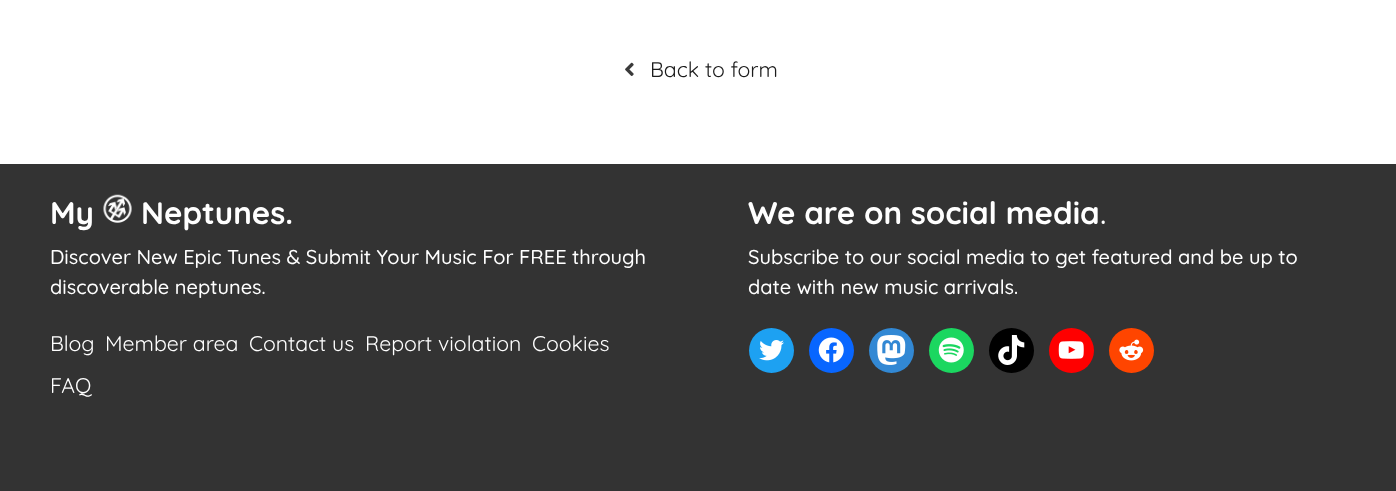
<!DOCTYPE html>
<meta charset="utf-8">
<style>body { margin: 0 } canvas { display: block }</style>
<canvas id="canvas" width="1396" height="491"></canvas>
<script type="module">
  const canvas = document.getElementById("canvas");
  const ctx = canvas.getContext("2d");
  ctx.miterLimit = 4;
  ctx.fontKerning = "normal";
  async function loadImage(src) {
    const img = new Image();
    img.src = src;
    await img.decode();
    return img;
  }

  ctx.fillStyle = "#ffffff";
  ctx.fillRect(0, 0, 1396, 491);
  ctx.drawImage(await loadImage("img1.png"), 625, 62, 9, 14);
  ctx.font = "21.25px Quicksand";
  ctx.fillStyle = "#1c1c1c";
  ctx.fillText("Back to form", 650, 77);
  ctx.fillStyle = "#333333";
  ctx.fillRect(0, 164, 1396, 327);
  ctx.font = "bold 31.25px Quicksand";
  ctx.fillStyle = "#ffffff";
  ctx.fillText("My", 50, 224);
  ctx.drawImage(await loadImage("img2.png"), 103, 194, 29, 29);
  ctx.fillText("Neptunes.", 141, 224);
  ctx.font = "500 20px Quicksand";
  ctx.fillText("Discover New Epic Tunes & Submit Your Music For FREE through", 50, 264);
  ctx.fillText("discoverable neptunes.", 50, 294);
  ctx.font = "21.25px Quicksand";
  ctx.fillText("Blog", 50, 351);
  ctx.fillText("Member area", 105, 351);
  ctx.fillText("Contact us", 249, 351);
  ctx.fillText("Report violation", 365, 351);
  ctx.fillText("Cookies", 532, 351);
  ctx.fillText("FAQ", 50, 393);
  ctx.font = "bold 31.25px Quicksand";
  ctx.fillText("We are on social media", 748, 224);
  ctx.font = "500 31.25px Quicksand";
  ctx.fillText(".", 1100, 224);
  ctx.font = "500 20px Quicksand";
  ctx.fillText("Subscribe to our social media to get featured and be up to", 748, 264);
  ctx.fillText("date with new music arrivals.", 748, 294);
  ctx.fillStyle = "#1da1f2";
  ctx.beginPath();
  ctx.arc(771.5, 350.5, 22.5, 0, Math.PI * 2);
  ctx.fill();
  ctx.drawImage(await loadImage("img3.png"), 759, 340, 25, 21);
  ctx.fillStyle = "#0866ff";
  ctx.beginPath();
  ctx.arc(831.5, 350.5, 22.5, 0, Math.PI * 2);
  ctx.fill();
  ctx.drawImage(await loadImage("img4.png"), 818, 337, 26, 26);
  ctx.fillStyle = "#3288d4";
  ctx.beginPath();
  ctx.arc(891.5, 350.5, 22.5, 0, Math.PI * 2);
  ctx.fill();
  ctx.drawImage(await loadImage("img5.png"), 877, 335, 29, 30);
  ctx.fillStyle = "#1bd760";
  ctx.beginPath();
  ctx.arc(951.5, 350.5, 22.5, 0, Math.PI * 2);
  ctx.fill();
  ctx.drawImage(await loadImage("img6.png"), 938, 337, 26, 26);
  ctx.fillStyle = "#000000";
  ctx.beginPath();
  ctx.arc(1011.5, 350.5, 22.5, 0, Math.PI * 2);
  ctx.fill();
  ctx.drawImage(await loadImage("img7.png"), 998, 335, 27, 30);
  ctx.fillStyle = "#ff0000";
  ctx.beginPath();
  ctx.arc(1071.5, 350.5, 22.5, 0, Math.PI * 2);
  ctx.fill();
  ctx.drawImage(await loadImage("img8.png"), 1058, 341, 26, 18);
  ctx.fillStyle = "#ff4500";
  ctx.beginPath();
  ctx.arc(1131.5, 350.5, 22.5, 0, Math.PI * 2);
  ctx.fill();
  ctx.drawImage(await loadImage("img9.png"), 1119, 339, 25, 22);
</script>
